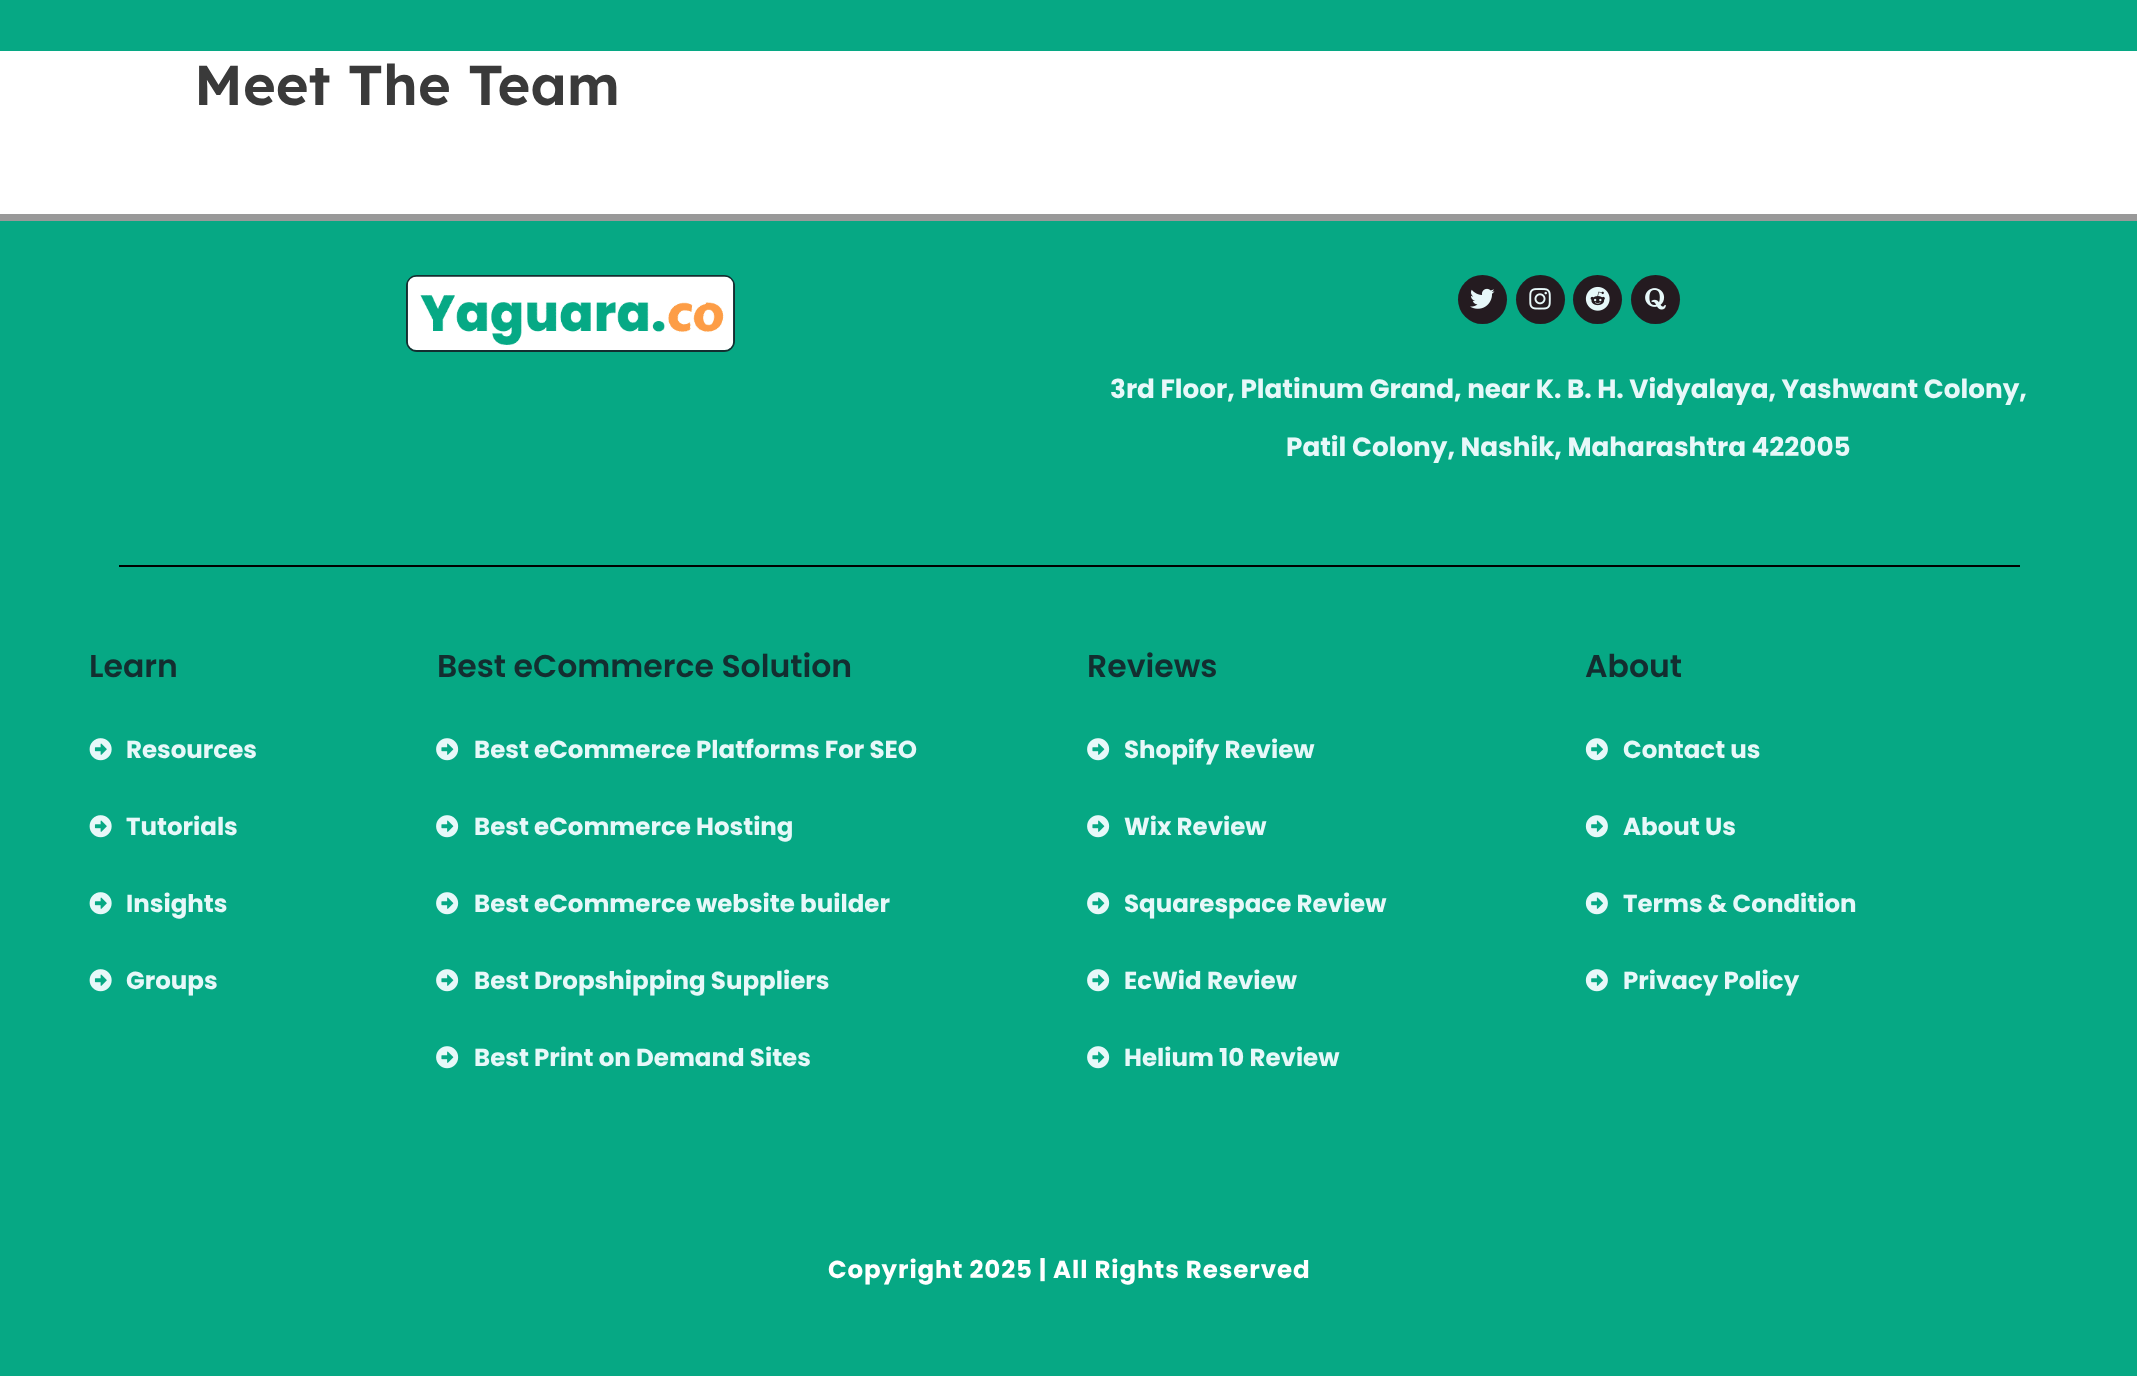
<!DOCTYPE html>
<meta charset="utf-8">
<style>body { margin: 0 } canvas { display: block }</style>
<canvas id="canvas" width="2137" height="1376"></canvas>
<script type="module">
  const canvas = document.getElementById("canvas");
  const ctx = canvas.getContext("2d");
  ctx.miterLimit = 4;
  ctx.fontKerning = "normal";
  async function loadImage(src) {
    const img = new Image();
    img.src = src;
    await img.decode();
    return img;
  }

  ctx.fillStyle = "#ffffff";
  ctx.fillRect(0, 0, 2137, 1376);
  ctx.fillStyle = "#06a884";
  ctx.fillRect(0, 0, 2137, 51);
  ctx.font = "600 56px Lexend Deca";
  ctx.fillStyle = "#3a3a3a";
  ctx.fillText("Meet The Team", 194, 105);
  ctx.fillStyle = "#06a884";
  ctx.fillRect(0, 221, 2137, 1155);
  ctx.fillStyle = "#999999";
  ctx.fillRect(0, 214, 2137, 7);
  ctx.beginPath();
  ctx.roundRect(407, 276, 327, 75, 10);
  ctx.strokeStyle = "#132e30";
  ctx.lineWidth = 2;
  ctx.stroke();
  ctx.drawImage(await loadImage("img1.png"), 407, 276, 327, 74);
  ctx.fillStyle = "#241b20";
  ctx.beginPath();
  ctx.arc(1482.5, 299.5, 24.5, 0, Math.PI * 2);
  ctx.fill();
  ctx.drawImage(await loadImage("img2.png"), 1470, 288, 25, 21);
  ctx.beginPath();
  ctx.arc(1540.5, 299.5, 24.5, 0, Math.PI * 2);
  ctx.fill();
  ctx.drawImage(await loadImage("img3.png"), 1529, 288, 22, 22);
  ctx.beginPath();
  ctx.arc(1597.5, 299.5, 24.5, 0, Math.PI * 2);
  ctx.fill();
  ctx.drawImage(await loadImage("img4.png"), 1585, 286, 25, 25);
  ctx.beginPath();
  ctx.arc(1655.5, 299.5, 24.5, 0, Math.PI * 2);
  ctx.fill();
  ctx.drawImage(await loadImage("img5.png"), 1645, 288, 21, 22);
  ctx.font = "bold 26.25px Poppins";
  ctx.fillStyle = "#e7f8f9";
  ctx.fillText("3rd Floor, Platinum Grand, near K. B. H. Vidyalaya, Yashwant Colony,", 1110, 398);
  ctx.fillText("Patil Colony, Nashik, Maharashtra 422005", 1286, 456);
  ctx.fillStyle = "#000000";
  ctx.fillRect(119, 565, 1901, 2);
  ctx.font = "600 31.5px Poppins";
  ctx.fillStyle = "#132e30";
  ctx.fillText("Learn", 89, 677);
  ctx.drawImage(await loadImage("img6.png"), 89, 738, 23, 23);
  ctx.font = "bold 24.5px Poppins";
  ctx.fillStyle = "#e7f8f9";
  ctx.fillText("Resources", 126, 758);
  ctx.drawImage(await loadImage("img6.png"), 89, 815, 23, 23);
  ctx.fillText("Tutorials", 126, 835);
  ctx.drawImage(await loadImage("img6.png"), 89, 892, 23, 23);
  ctx.fillText("Insights", 126, 912);
  ctx.drawImage(await loadImage("img6.png"), 89, 969, 23, 23);
  ctx.fillText("Groups", 126, 989);
  ctx.font = "600 31.5px Poppins";
  ctx.fillStyle = "#132e30";
  ctx.fillText("Best eCommerce Solution", 437, 677);
  ctx.drawImage(await loadImage("img7.png"), 436, 738, 23, 23);
  ctx.font = "bold 24.5px Poppins";
  ctx.fillStyle = "#e7f8f9";
  ctx.fillText("Best eCommerce Platforms For SEO", 474, 758);
  ctx.drawImage(await loadImage("img7.png"), 436, 815, 23, 23);
  ctx.fillText("Best eCommerce Hosting", 474, 835);
  ctx.drawImage(await loadImage("img7.png"), 436, 892, 23, 23);
  ctx.fillText("Best eCommerce website builder", 474, 912);
  ctx.drawImage(await loadImage("img7.png"), 436, 969, 23, 23);
  ctx.fillText("Best Dropshipping Suppliers", 474, 989);
  ctx.drawImage(await loadImage("img7.png"), 436, 1046, 23, 23);
  ctx.fillText("Best Print on Demand Sites", 474, 1066);
  ctx.font = "600 31.5px Poppins";
  ctx.fillStyle = "#132e30";
  ctx.fillText("Reviews", 1087, 677);
  ctx.drawImage(await loadImage("img7.png"), 1087, 738, 23, 23);
  ctx.font = "bold 24.5px Poppins";
  ctx.fillStyle = "#e7f8f9";
  ctx.fillText("Shopify Review", 1124, 758);
  ctx.drawImage(await loadImage("img7.png"), 1087, 815, 23, 23);
  ctx.fillText("Wix Review", 1124, 835);
  ctx.drawImage(await loadImage("img7.png"), 1087, 892, 23, 23);
  ctx.fillText("Squarespace Review", 1124, 912);
  ctx.drawImage(await loadImage("img7.png"), 1087, 969, 23, 23);
  ctx.fillText("EcWid Review", 1124, 989);
  ctx.drawImage(await loadImage("img7.png"), 1087, 1046, 23, 23);
  ctx.fillText("Helium 10 Review", 1124, 1066);
  ctx.font = "600 31.5px Poppins";
  ctx.fillStyle = "#132e30";
  ctx.fillText("About", 1585, 677);
  ctx.drawImage(await loadImage("img8.png"), 1585, 738, 23, 23);
  ctx.font = "bold 24.5px Poppins";
  ctx.fillStyle = "#e7f8f9";
  ctx.fillText("Contact us", 1623, 758);
  ctx.drawImage(await loadImage("img8.png"), 1585, 815, 23, 23);
  ctx.fillText("About Us", 1623, 835);
  ctx.drawImage(await loadImage("img8.png"), 1585, 892, 23, 23);
  ctx.fillText("Terms & Condition", 1623, 912);
  ctx.drawImage(await loadImage("img8.png"), 1585, 969, 23, 23);
  ctx.fillText("Privacy Policy", 1623, 989);
  ctx.letterSpacing = "0.9px";
  ctx.fillStyle = "#ffffff";
  ctx.fillText("Copyright 2025 | All Rights Reserved", 828, 1278);
</script>
